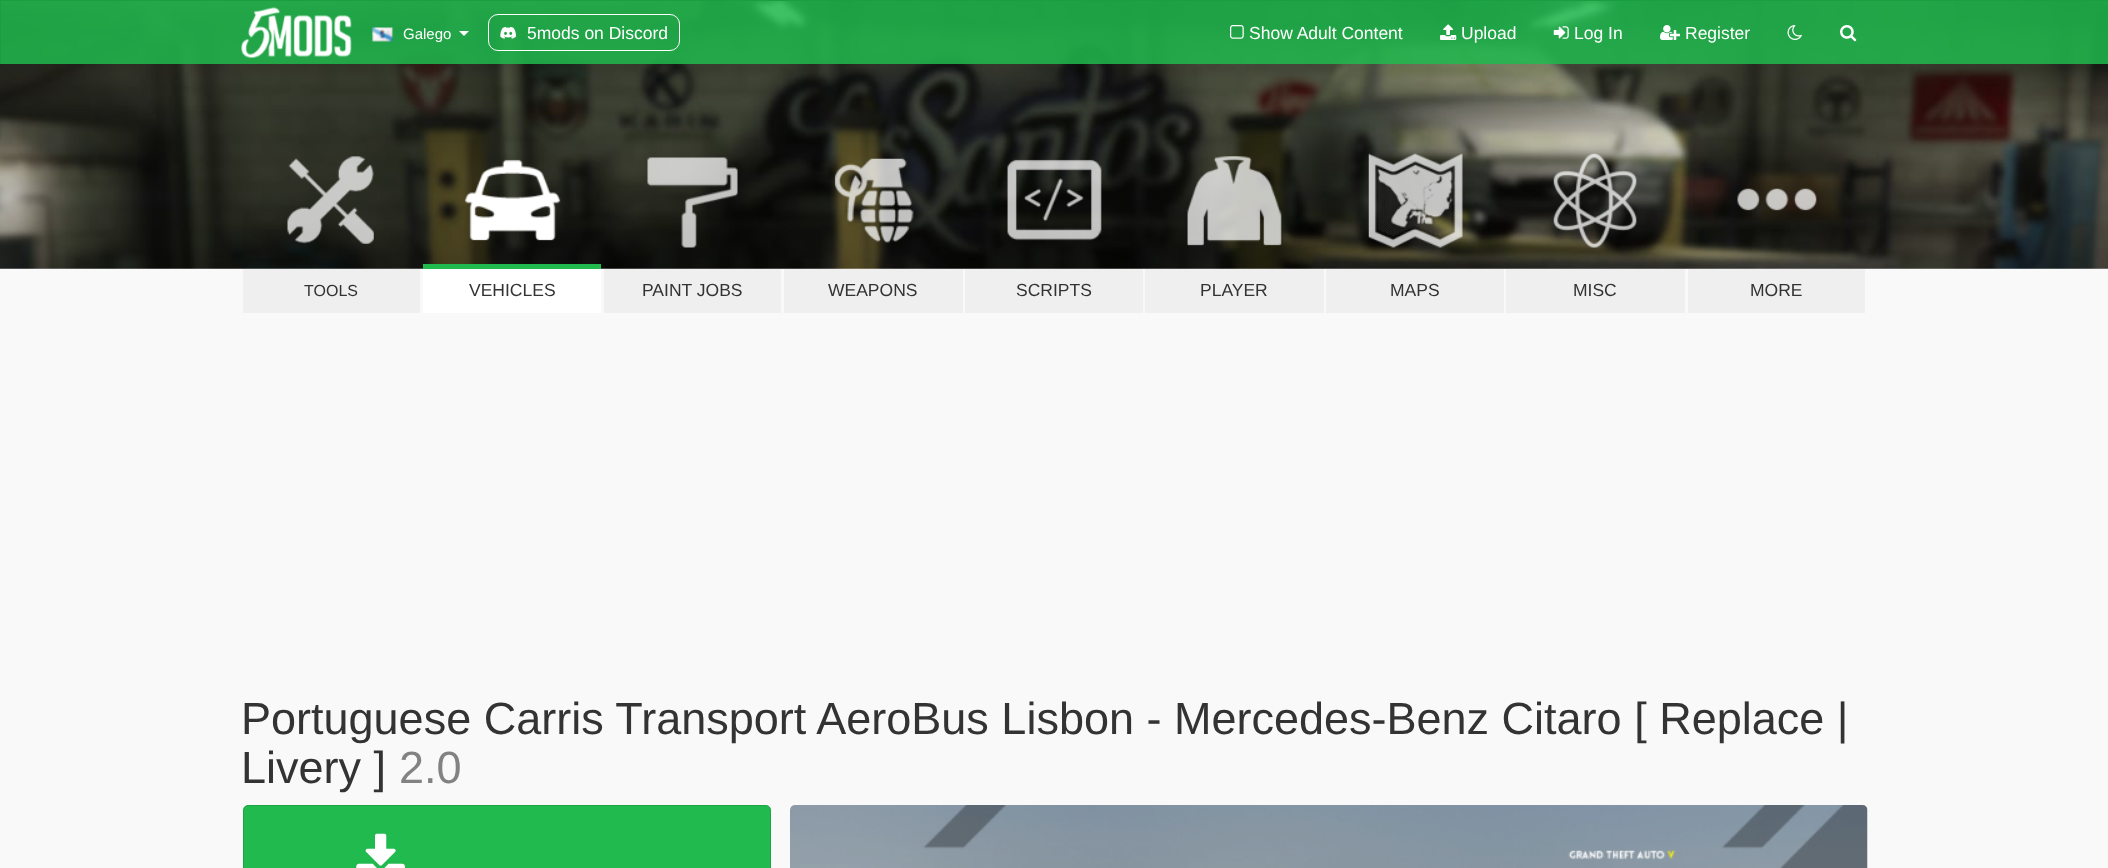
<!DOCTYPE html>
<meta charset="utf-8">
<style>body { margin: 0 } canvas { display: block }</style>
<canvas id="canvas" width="2108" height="868"></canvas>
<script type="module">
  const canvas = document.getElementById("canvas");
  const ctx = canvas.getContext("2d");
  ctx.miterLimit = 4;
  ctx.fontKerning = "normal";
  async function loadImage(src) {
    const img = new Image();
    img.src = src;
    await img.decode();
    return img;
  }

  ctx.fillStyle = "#f9f9f9";
  ctx.fillRect(0, 0, 2108, 868);
  ctx.drawImage(await loadImage("img10.png"), 0, 1, 2108, 268);
  ctx.fillStyle = "rgba(32, 186, 78, 0.85)";
  ctx.fillRect(1, 1, 2107, 63);
  ctx.fillStyle = "#1b9e42";
  ctx.fillRect(0, 0, 2108, 1);
  ctx.fillRect(0, 0, 1, 64);
  ctx.drawImage(await loadImage("img1.png"), 241, 7, 111, 51);
  ctx.drawImage(await loadImage("img2.png"), 372, 27, 22, 15);
  ctx.font = "15px Liberation Sans";
  ctx.fillStyle = "#ffffff";
  ctx.fillText("Galego", 403, 39);
  ctx.beginPath();
  ctx.moveTo(459, 31);
  ctx.lineTo(469, 31);
  ctx.lineTo(464, 36);
  ctx.closePath();
  ctx.fill();
  ctx.beginPath();
  ctx.roundRect(488.5, 14.5, 191, 36, 9.5);
  ctx.strokeStyle = "#ffffff";
  ctx.stroke();
  ctx.drawImage(await loadImage("img3.png"), 500, 26, 16, 13);
  ctx.font = "17.5px Liberation Sans";
  ctx.fillText("5mods on Discord", 527, 39);
  ctx.drawImage(await loadImage("img4.png"), 1230, 25, 14, 14);
  ctx.fillText("Show Adult Content", 1249, 39);
  ctx.drawImage(await loadImage("img5.png"), 1440, 24, 17, 16);
  ctx.fillText("Upload", 1461, 39);
  ctx.drawImage(await loadImage("img6.png"), 1553, 26, 16, 13);
  ctx.fillText("Log In", 1574, 39);
  ctx.drawImage(await loadImage("img7.png"), 1660, 25, 20, 15);
  ctx.fillText("Register", 1685, 39);
  ctx.drawImage(await loadImage("img8.png"), 1787, 25, 15, 15);
  ctx.drawImage(await loadImage("img9.png"), 1840, 25, 17, 17);
  ctx.drawImage(await loadImage("img11.png"), 287, 156, 87, 88);
  ctx.fillStyle = "#efefef";
  ctx.fillRect(243, 269, 177, 44);
  ctx.font = "16px Liberation Sans";
  ctx.fillStyle = "#333333";
  ctx.fillText("TOOLS", 304, 296);
  ctx.drawImage(await loadImage("img12.png"), 464, 159, 97, 82);
  ctx.fillStyle = "#20ba4e";
  ctx.fillRect(423, 264, 178, 5);
  ctx.fillStyle = "#ffffff";
  ctx.fillRect(423, 269, 178, 44);
  ctx.font = "17.5px Liberation Sans";
  ctx.fillStyle = "#333333";
  ctx.fillText("VEHICLES", 469, 296);
  ctx.drawImage(await loadImage("img13.png"), 647, 157, 91, 91);
  ctx.fillStyle = "#efefef";
  ctx.fillRect(604, 269, 177, 44);
  ctx.fillStyle = "#333333";
  ctx.fillText("PAINT JOBS", 642, 296);
  ctx.drawImage(await loadImage("img14.png"), 834, 158, 80, 85);
  ctx.fillStyle = "#efefef";
  ctx.fillRect(784, 269, 179, 44);
  ctx.fillStyle = "#333333";
  ctx.fillText("WEAPONS", 828, 296);
  ctx.drawImage(await loadImage("img15.png"), 1007, 159, 95, 82);
  ctx.fillStyle = "#efefef";
  ctx.fillRect(965, 269, 178, 44);
  ctx.fillStyle = "#333333";
  ctx.fillText("SCRIPTS", 1016, 296);
  ctx.drawImage(await loadImage("img16.png"), 1187, 156, 95, 90);
  ctx.fillStyle = "#efefef";
  ctx.fillRect(1145, 269, 179, 44);
  ctx.fillStyle = "#333333";
  ctx.fillText("PLAYER", 1200, 296);
  ctx.drawImage(await loadImage("img17.png"), 1368, 153, 95, 95);
  ctx.fillStyle = "#efefef";
  ctx.fillRect(1326, 269, 178, 44);
  ctx.fillStyle = "#333333";
  ctx.fillText("MAPS", 1390, 296);
  ctx.drawImage(await loadImage("img18.png"), 1553, 153, 84, 95);
  ctx.fillStyle = "#efefef";
  ctx.fillRect(1506, 269, 179, 44);
  ctx.fillStyle = "#333333";
  ctx.fillText("MISC", 1573, 296);
  ctx.drawImage(await loadImage("img19.png"), 1737, 188, 80, 23);
  ctx.fillStyle = "#efefef";
  ctx.fillRect(1688, 269, 177, 44);
  ctx.fillStyle = "#333333";
  ctx.fillText("MORE", 1750, 296);
  ctx.font = "45px Liberation Sans";
  ctx.fillText("Portuguese Carris Transport AeroBus Lisbon - Mercedes-Benz Citaro [ Replace |", 241, 734);
  ctx.fillText("Livery ]", 241, 783);
  ctx.fillStyle = "#828282";
  ctx.fillText("2.0", 399, 783);
  ctx.fillStyle = "#20ba4e";
  ctx.beginPath();
  ctx.roundRect(243.5, 805.5, 527, 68, 4.5);
  ctx.fill();
  ctx.strokeStyle = "#1ca445";
  ctx.stroke();
  ctx.drawImage(await loadImage("img20.png"), 356, 833, 49, 35);
  ctx.drawImage(await loadImage("img21.png"), 790, 805, 1078, 63);
</script>
